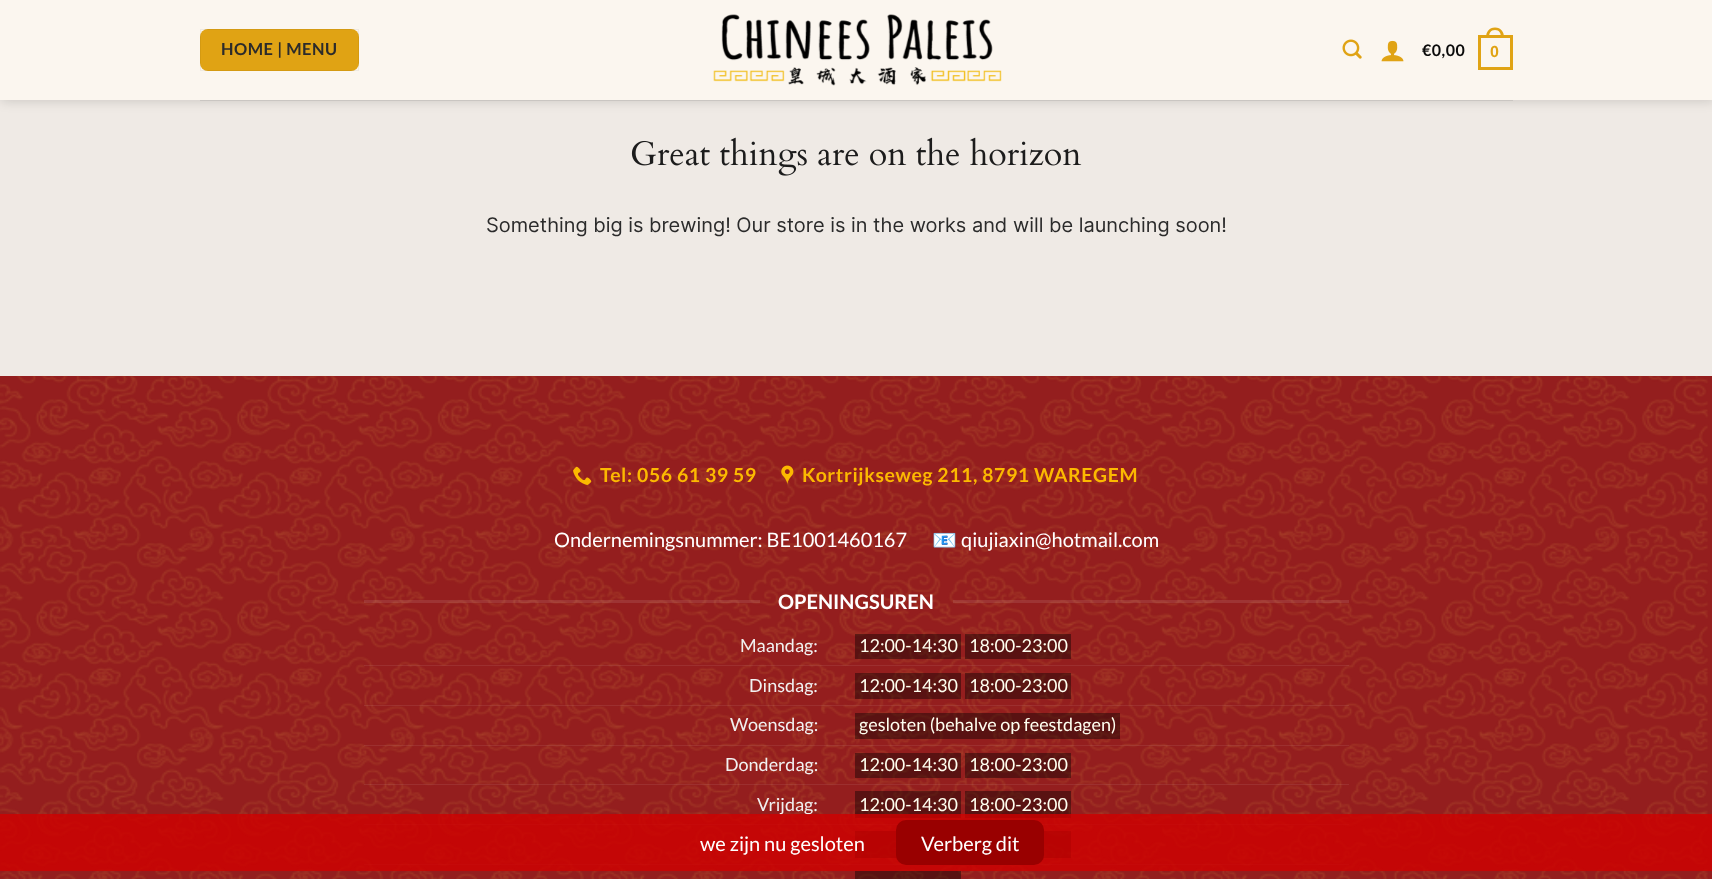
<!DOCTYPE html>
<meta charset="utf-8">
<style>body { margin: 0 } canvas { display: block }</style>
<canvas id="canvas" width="1712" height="879"></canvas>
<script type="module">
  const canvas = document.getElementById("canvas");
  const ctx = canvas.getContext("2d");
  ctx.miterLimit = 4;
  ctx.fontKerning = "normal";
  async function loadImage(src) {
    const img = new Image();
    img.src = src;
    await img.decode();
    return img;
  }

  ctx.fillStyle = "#efeae5";
  ctx.fillRect(0, 0, 1712, 879);
  ctx.fillStyle = "rgba(0, 0, 0, 0.15)";
  ctx.filter = "blur(6px)";
  ctx.beginPath();
  ctx.rect(1, 1, 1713, 100);
  ctx.fill();
  ctx.filter = "none";
  ctx.fillStyle = "#fbf6ef";
  ctx.fillRect(0, 0, 1712, 100);
  ctx.fillStyle = "#e0a314";
  ctx.beginPath();
  ctx.roundRect(200, 29, 159, 42, 8);
  ctx.fill();
  ctx.strokeStyle = "rgba(0, 0, 0, 0.05)";
  ctx.strokeRect(200.5, 29.5, 158, 41);
  ctx.letterSpacing = "0.5px";
  ctx.font = "bold 16.5px Lato";
  ctx.fillStyle = "#2b2b2b";
  ctx.fillText("HOME | MENU", 221, 55);
  ctx.drawImage(await loadImage("img1.png"), 713, 14, 289, 72);
  ctx.drawImage(await loadImage("img2.png"), 1342, 39, 20, 20);
  ctx.drawImage(await loadImage("img3.png"), 1381, 40, 23, 22);
  ctx.font = "bold 16px Lato";
  ctx.fillStyle = "#0a0a0a";
  ctx.fillText("€0,00", 1422, 56);
  ctx.strokeStyle = "#e0a314";
  ctx.lineWidth = 3;
  ctx.strokeRect(1479.5, 36.5, 32, 32);
  ctx.fillStyle = "#e0a314";
  ctx.beginPath();
  ctx.moveTo(1495, 27.5);
  ctx.bezierCurveTo(1501, 27.5, 1504, 32, 1504, 37.5);
  ctx.lineTo(1486, 37.5);
  ctx.bezierCurveTo(1486, 32, 1489, 27.5, 1495, 27.5);
  ctx.closePath();
  ctx.moveTo(1495, 30);
  ctx.bezierCurveTo(1499.5, 30, 1501, 33.5, 1501, 37.5);
  ctx.lineTo(1489, 37.5);
  ctx.bezierCurveTo(1489, 33.5, 1490.5, 30, 1495, 30);
  ctx.closePath();
  ctx.fill("evenodd");
  ctx.font = "bold 16px Liberation Sans";
  ctx.fillText("0", 1490, 57);
  ctx.fillStyle = "#cac6c2";
  ctx.fillRect(200, 100, 1313, 1);
  ctx.drawImage(await loadImage("img4.png"), 631, 137, 451, 39);
  ctx.letterSpacing = "0px";
  ctx.font = "20px Inter";
  ctx.fillStyle = "#2b2b2b";
  ctx.fillText("Something big is brewing! Our store is in the works and will be launching soon!", 486, 232);
  ctx.fillStyle = "#941e1e";
  ctx.fillRect(0, 376, 1712, 503);
  ctx.drawImage(await loadImage("img5.png"), 0, 375, 1709, 504);
  ctx.drawImage(await loadImage("img6.png"), 573, 466, 19, 19);
  ctx.letterSpacing = "0.6px";
  ctx.font = "bold 19.4px Lato";
  ctx.fillStyle = "#fcb900";
  ctx.fillText("Tel: 056 61 39 59", 600, 482);
  ctx.drawImage(await loadImage("img7.png"), 781, 465, 13, 20);
  ctx.fillText("Kortrijkseweg 211, 8791 WAREGEM", 802, 482);
  ctx.letterSpacing = "0px";
  ctx.font = "20px Lato";
  ctx.fillStyle = "#ffffff";
  ctx.fillText("Ondernemingsnummer: BE1001460167", 554, 547);
  ctx.font = "20px Noto Color Emoji";
  ctx.fillText("📧", 932, 547);
  ctx.font = "20px Lato";
  ctx.fillText("qiujiaxin@hotmail.com", 961, 547);
  ctx.fillStyle = "rgba(255, 255, 255, 0.1)";
  ctx.fillRect(364, 600, 396, 3);
  ctx.font = "bold 20px Lato";
  ctx.fillStyle = "#ffffff";
  ctx.fillText("OPENINGSUREN", 778, 609);
  ctx.fillStyle = "rgba(255, 255, 255, 0.1)";
  ctx.fillRect(953, 600, 396, 3);
  ctx.fillStyle = "rgba(255, 255, 255, 0.08)";
  ctx.fillRect(364, 665, 472, 1);
  ctx.font = "18px Lato";
  ctx.fillStyle = "#f1f1f1";
  ctx.fillText("Maandag:", 740, 652);
  ctx.fillStyle = "rgba(255, 255, 255, 0.08)";
  ctx.fillRect(836, 665, 513, 1);
  ctx.fillStyle = "rgba(0, 0, 0, 0.4)";
  ctx.fillRect(855, 634, 106, 25);
  ctx.fillStyle = "#fffff0";
  ctx.fillText("12:00-14:30", 859, 652);
  ctx.fillStyle = "rgba(0, 0, 0, 0.4)";
  ctx.fillRect(965, 634, 106, 25);
  ctx.fillStyle = "#fffff0";
  ctx.fillText("18:00-23:00", 969, 652);
  ctx.fillStyle = "rgba(255, 255, 255, 0.08)";
  ctx.fillRect(364, 705, 472, 1);
  ctx.fillStyle = "#f1f1f1";
  ctx.fillText("Dinsdag:", 749, 692);
  ctx.fillStyle = "rgba(255, 255, 255, 0.08)";
  ctx.fillRect(836, 705, 513, 1);
  ctx.fillStyle = "rgba(0, 0, 0, 0.4)";
  ctx.fillRect(855, 673, 106, 26);
  ctx.fillStyle = "#fffff0";
  ctx.fillText("12:00-14:30", 859, 692);
  ctx.fillStyle = "rgba(0, 0, 0, 0.4)";
  ctx.fillRect(965, 673, 106, 26);
  ctx.fillStyle = "#fffff0";
  ctx.fillText("18:00-23:00", 969, 692);
  ctx.fillStyle = "rgba(255, 255, 255, 0.08)";
  ctx.fillRect(364, 745, 472, 1);
  ctx.fillStyle = "#f1f1f1";
  ctx.fillText("Woensdag:", 730, 731);
  ctx.fillStyle = "rgba(255, 255, 255, 0.08)";
  ctx.fillRect(836, 745, 513, 1);
  ctx.fillStyle = "rgba(0, 0, 0, 0.4)";
  ctx.fillRect(855, 713, 265, 26);
  ctx.fillStyle = "#fffff0";
  ctx.fillText("gesloten (behalve op feestdagen)", 859, 731);
  ctx.fillStyle = "rgba(255, 255, 255, 0.08)";
  ctx.fillRect(364, 784, 472, 1);
  ctx.fillStyle = "#f1f1f1";
  ctx.fillText("Donderdag:", 725, 771);
  ctx.fillStyle = "rgba(255, 255, 255, 0.08)";
  ctx.fillRect(836, 784, 513, 1);
  ctx.fillStyle = "rgba(0, 0, 0, 0.4)";
  ctx.fillRect(855, 753, 106, 25);
  ctx.fillStyle = "#fffff0";
  ctx.fillText("12:00-14:30", 859, 771);
  ctx.fillStyle = "rgba(0, 0, 0, 0.4)";
  ctx.fillRect(965, 753, 106, 25);
  ctx.fillStyle = "#fffff0";
  ctx.fillText("18:00-23:00", 969, 771);
  ctx.fillStyle = "rgba(255, 255, 255, 0.08)";
  ctx.fillRect(364, 824, 472, 1);
  ctx.fillStyle = "#f1f1f1";
  ctx.fillText("Vrijdag:", 757, 811);
  ctx.fillStyle = "rgba(255, 255, 255, 0.08)";
  ctx.fillRect(836, 824, 513, 1);
  ctx.fillStyle = "rgba(0, 0, 0, 0.4)";
  ctx.fillRect(855, 791, 106, 27);
  ctx.fillStyle = "#fffff0";
  ctx.fillText("12:00-14:30", 859, 811);
  ctx.fillStyle = "rgba(0, 0, 0, 0.4)";
  ctx.fillRect(965, 791, 106, 27);
  ctx.fillStyle = "#fffff0";
  ctx.fillText("18:00-23:00", 969, 811);
  ctx.fillStyle = "rgba(255, 255, 255, 0.08)";
  ctx.fillRect(364, 864, 472, 1);
  ctx.fillRect(836, 864, 513, 1);
  ctx.fillStyle = "rgba(0, 0, 0, 0.4)";
  ctx.fillRect(855, 831, 42, 27);
  ctx.fillRect(1043, 831, 28, 27);
  ctx.fillRect(855, 871, 106, 8);
  ctx.fillStyle = "rgba(208, 0, 0, 0.8)";
  ctx.fillRect(0, 814, 1712, 57);
  ctx.font = "20px Lato";
  ctx.fillStyle = "#ffffff";
  ctx.fillText("we zijn nu gesloten", 700, 851);
  ctx.fillStyle = "#990000";
  ctx.beginPath();
  ctx.roundRect(896, 820, 148, 45, 10);
  ctx.fill();
  ctx.fillStyle = "#ffffff";
  ctx.fillText("Verberg dit", 921, 851);
</script>
